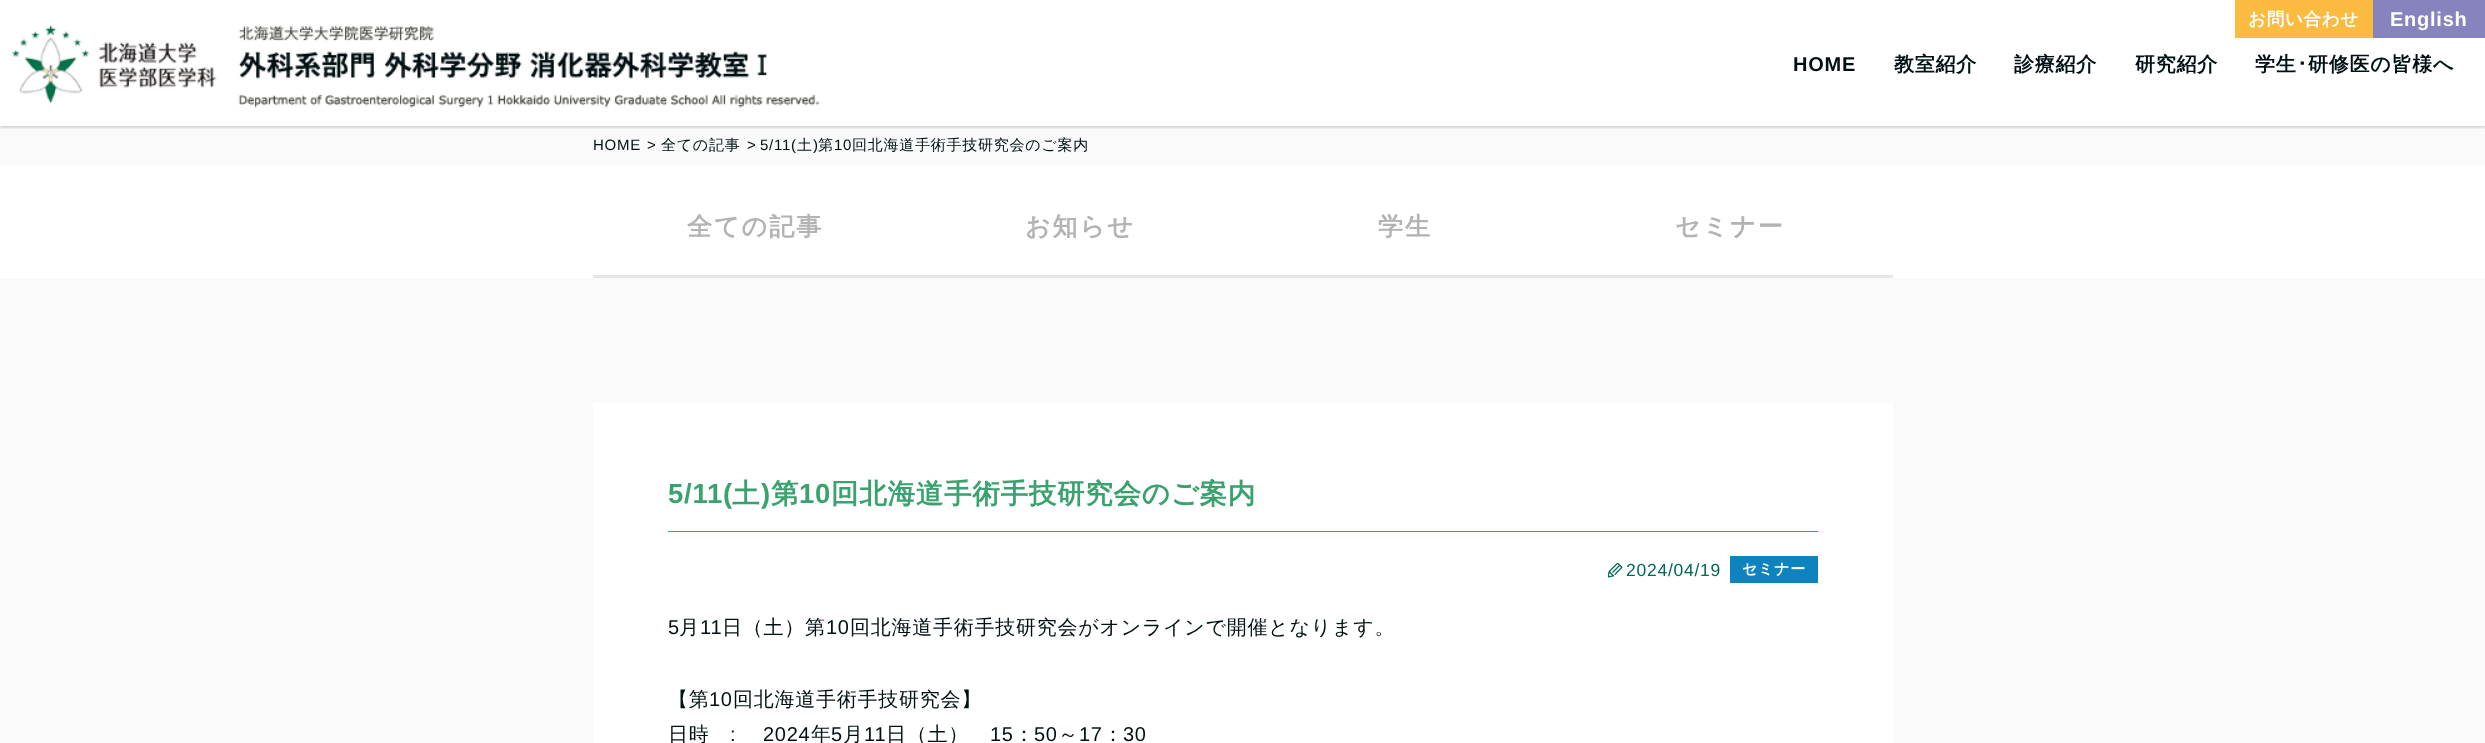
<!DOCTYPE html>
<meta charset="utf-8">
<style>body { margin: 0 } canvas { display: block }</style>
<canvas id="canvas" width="2485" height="743"></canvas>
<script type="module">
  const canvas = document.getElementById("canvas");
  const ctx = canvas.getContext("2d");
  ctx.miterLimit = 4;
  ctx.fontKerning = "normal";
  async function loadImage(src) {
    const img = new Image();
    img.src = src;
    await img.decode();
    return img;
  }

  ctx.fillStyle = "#ffffff";
  ctx.fillRect(0, 0, 2485, 743);
  ctx.fillStyle = "#fafafa";
  ctx.fillRect(0, 126, 2485, 39);
  ctx.save();
  ctx.beginPath();
  ctx.rect(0, 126, 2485, 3);
  ctx.clip();
  ctx.fillStyle = "rgba(0, 0, 0, 0.15)";
  ctx.filter = "blur(1px)";
  ctx.beginPath();
  ctx.rect(0, 1, 2485, 127);
  ctx.fill();
  ctx.filter = "none";
  ctx.restore();
  ctx.drawImage(await loadImage("img1.png"), 12, 25, 807, 83);
  ctx.fillStyle = "#fabb40";
  ctx.fillRect(2235, 0, 138, 38);
  ctx.letterSpacing = "0.75px";
  ctx.font = "bold 17.5px WenQuanYi Zen Hei";
  ctx.fillStyle = "#ffffff";
  ctx.fillText("お問い合わせ", 2248, 25);
  ctx.fillStyle = "#8683be";
  ctx.fillRect(2373, 0, 112, 38);
  ctx.font = "bold 20px Liberation Sans";
  ctx.fillStyle = "#ffffff";
  ctx.fillText("English", 2390, 26);
  ctx.fillStyle = "#000f12";
  ctx.fillText("HOME", 1793, 71);
  ctx.font = "bold 20px WenQuanYi Zen Hei";
  ctx.fillText("教室紹介", 1894, 71);
  ctx.fillText("診療紹介", 2014, 71);
  ctx.fillText("研究紹介", 2135, 71);
  ctx.fillText("学生", 2255, 71);
  ctx.font = "bold 20px IPAPGothic";
  ctx.fillText("･", 2297, 71);
  ctx.font = "bold 20px WenQuanYi Zen Hei";
  ctx.fillText("研修医の皆様へ", 2308, 71);
  ctx.font = "15px Liberation Sans";
  ctx.fillText("HOME", 593, 150);
  ctx.fillText(">", 647, 150);
  ctx.font = "500 15px WenQuanYi Zen Hei";
  ctx.fillText("全ての記事", 661, 150);
  ctx.font = "15px Liberation Sans";
  ctx.fillText(">", 747, 150);
  ctx.fillText("5/11(", 760, 150);
  ctx.font = "500 15px WenQuanYi Zen Hei";
  ctx.fillText("土", 797, 150);
  ctx.font = "15px Liberation Sans";
  ctx.fillText(")", 813, 150);
  ctx.font = "500 15px WenQuanYi Zen Hei";
  ctx.fillText("第", 818, 150);
  ctx.font = "15px Liberation Sans";
  ctx.fillText("10", 834, 150);
  ctx.font = "500 15px WenQuanYi Zen Hei";
  ctx.fillText("回北海道手術手技研究会のご案内", 852, 150);
  ctx.letterSpacing = "2px";
  ctx.font = "bold 25px WenQuanYi Zen Hei";
  ctx.fillStyle = "#b3b3b3";
  ctx.fillText("全ての記事", 687, 235);
  ctx.fillStyle = "#e6e6e6";
  ctx.fillRect(593, 275, 1300, 3);
  ctx.fillStyle = "#b3b3b3";
  ctx.fillText("お知らせ", 1025, 235);
  ctx.fillText("学生", 1378, 235);
  ctx.fillText("セミナー", 1675, 235);
  ctx.fillStyle = "#fafafa";
  ctx.fillRect(0, 278, 2485, 465);
  ctx.fillStyle = "#ffffff";
  ctx.fillRect(593, 403, 1300, 340);
  ctx.fillStyle = "#3aa26e";
  ctx.fillRect(668, 531, 1150, 1);
  ctx.letterSpacing = "0.75px";
  ctx.font = "bold 27.5px Liberation Sans";
  ctx.fillText("5/11(", 668, 503);
  ctx.font = "bold 27.5px WenQuanYi Zen Hei";
  ctx.fillText("土", 732, 503);
  ctx.font = "bold 27.5px Liberation Sans";
  ctx.fillText(")", 761, 503);
  ctx.font = "bold 27.5px WenQuanYi Zen Hei";
  ctx.fillText("第", 771, 503);
  ctx.font = "bold 27.5px Liberation Sans";
  ctx.fillText("10", 799, 503);
  ctx.font = "bold 27.5px WenQuanYi Zen Hei";
  ctx.fillText("回北海道手術手技研究会のご案内", 831, 503);
  ctx.drawImage(await loadImage("img2.png"), 1608, 563, 15, 15);
  ctx.font = "17.5px Liberation Sans";
  ctx.fillStyle = "#006856";
  ctx.fillText("2024/04/19", 1626, 576);
  ctx.fillStyle = "#0e83be";
  ctx.fillRect(1730, 556, 88, 27);
  ctx.font = "bold 15px WenQuanYi Zen Hei";
  ctx.fillStyle = "#ffffff";
  ctx.fillText("セミナー", 1742, 574);
  ctx.font = "20px Liberation Sans";
  ctx.fillStyle = "#000f12";
  ctx.fillText("5", 668, 634);
  ctx.font = "500 20px WenQuanYi Zen Hei";
  ctx.fillText("月", 679, 634);
  ctx.font = "20px Liberation Sans";
  ctx.fillText("11", 700, 634);
  ctx.font = "500 20px WenQuanYi Zen Hei";
  ctx.fillText("日（土）第", 722, 634);
  ctx.font = "20px Liberation Sans";
  ctx.fillText("10", 826, 634);
  ctx.font = "500 20px WenQuanYi Zen Hei";
  ctx.fillText("回北海道手術手技研究会がオンラインで開催となります。", 850, 634);
  ctx.fillText("【第", 668, 706);
  ctx.font = "20px Liberation Sans";
  ctx.fillText("10", 709, 706);
  ctx.font = "500 20px WenQuanYi Zen Hei";
  ctx.fillText("回北海道手術手技研究会】", 733, 706);
  ctx.fillText("日時", 668, 741);
  ctx.font = "20px Liberation Sans";
  ctx.fillText(":", 730, 741);
  ctx.fillText("2024", 763, 741);
  ctx.font = "500 20px WenQuanYi Zen Hei";
  ctx.fillText("年", 811, 741);
  ctx.font = "20px Liberation Sans";
  ctx.fillText("5", 831, 741);
  ctx.font = "500 20px WenQuanYi Zen Hei";
  ctx.fillText("月", 843, 741);
  ctx.font = "20px Liberation Sans";
  ctx.fillText("11", 864, 741);
  ctx.font = "500 20px WenQuanYi Zen Hei";
  ctx.fillText("日（土）", 886, 741);
  ctx.font = "20px Liberation Sans";
  ctx.fillText("15", 990, 741);
  ctx.font = "500 20px WenQuanYi Zen Hei";
  ctx.fillText("：", 1014, 741);
  ctx.font = "20px Liberation Sans";
  ctx.fillText("50", 1034, 741);
  ctx.font = "500 20px WenQuanYi Zen Hei";
  ctx.fillText("～", 1058, 741);
  ctx.font = "20px Liberation Sans";
  ctx.fillText("17", 1079, 741);
  ctx.font = "500 20px WenQuanYi Zen Hei";
  ctx.fillText("：", 1103, 741);
  ctx.font = "20px Liberation Sans";
  ctx.fillText("30", 1123, 741);
</script>
